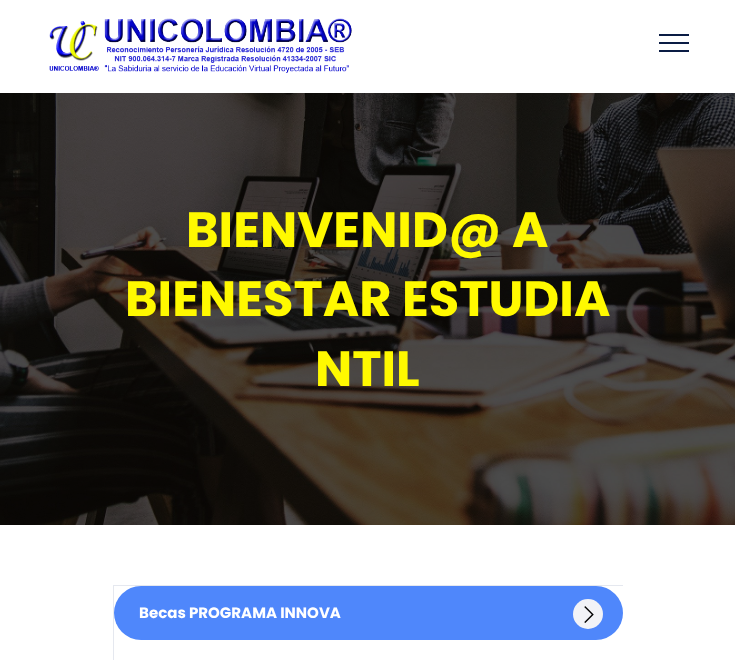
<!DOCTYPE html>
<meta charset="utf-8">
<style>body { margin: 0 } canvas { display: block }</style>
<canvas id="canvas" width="735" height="660"></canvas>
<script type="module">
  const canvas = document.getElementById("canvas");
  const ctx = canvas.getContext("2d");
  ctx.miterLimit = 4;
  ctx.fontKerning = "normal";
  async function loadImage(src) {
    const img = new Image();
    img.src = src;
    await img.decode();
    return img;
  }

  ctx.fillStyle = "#ffffff";
  ctx.fillRect(0, 0, 735, 660);
  ctx.drawImage(await loadImage("img1.png"), 49, 18, 303, 55);
  ctx.fillStyle = "#0a1c44";
  ctx.fillRect(659, 34, 30, 2);
  ctx.fillRect(659, 42, 30, 2);
  ctx.fillRect(659, 50, 30, 2);
  ctx.drawImage(await loadImage("img2.png"), 0, 93, 735, 432);
  ctx.font = "bold 49.5px Poppins";
  ctx.fillStyle = "#fff900";
  ctx.fillText("BIENVENID@ A", 186, 247);
  ctx.fillText("BIENESTAR ESTUDIA", 125, 316);
  ctx.fillText("NTIL", 315, 386);
  ctx.fillStyle = "#e5e8ef";
  ctx.fillRect(113, 585, 510, 1);
  ctx.fillRect(113, 585, 1, 75);
  ctx.fillStyle = "#4f87fb";
  ctx.beginPath();
  ctx.roundRect(114, 586, 509, 54, 27);
  ctx.fill();
  ctx.font = "bold 15px Poppins";
  ctx.fillStyle = "#ffffff";
  ctx.fillText("Becas PROGRAMA INNOVA", 139, 618);
  ctx.fillStyle = "#f2f3f7";
  ctx.beginPath();
  ctx.arc(588, 614, 15, 0, Math.PI * 2);
  ctx.fill();
  ctx.drawImage(await loadImage("img3.png"), 584, 606, 10, 17);
</script>
